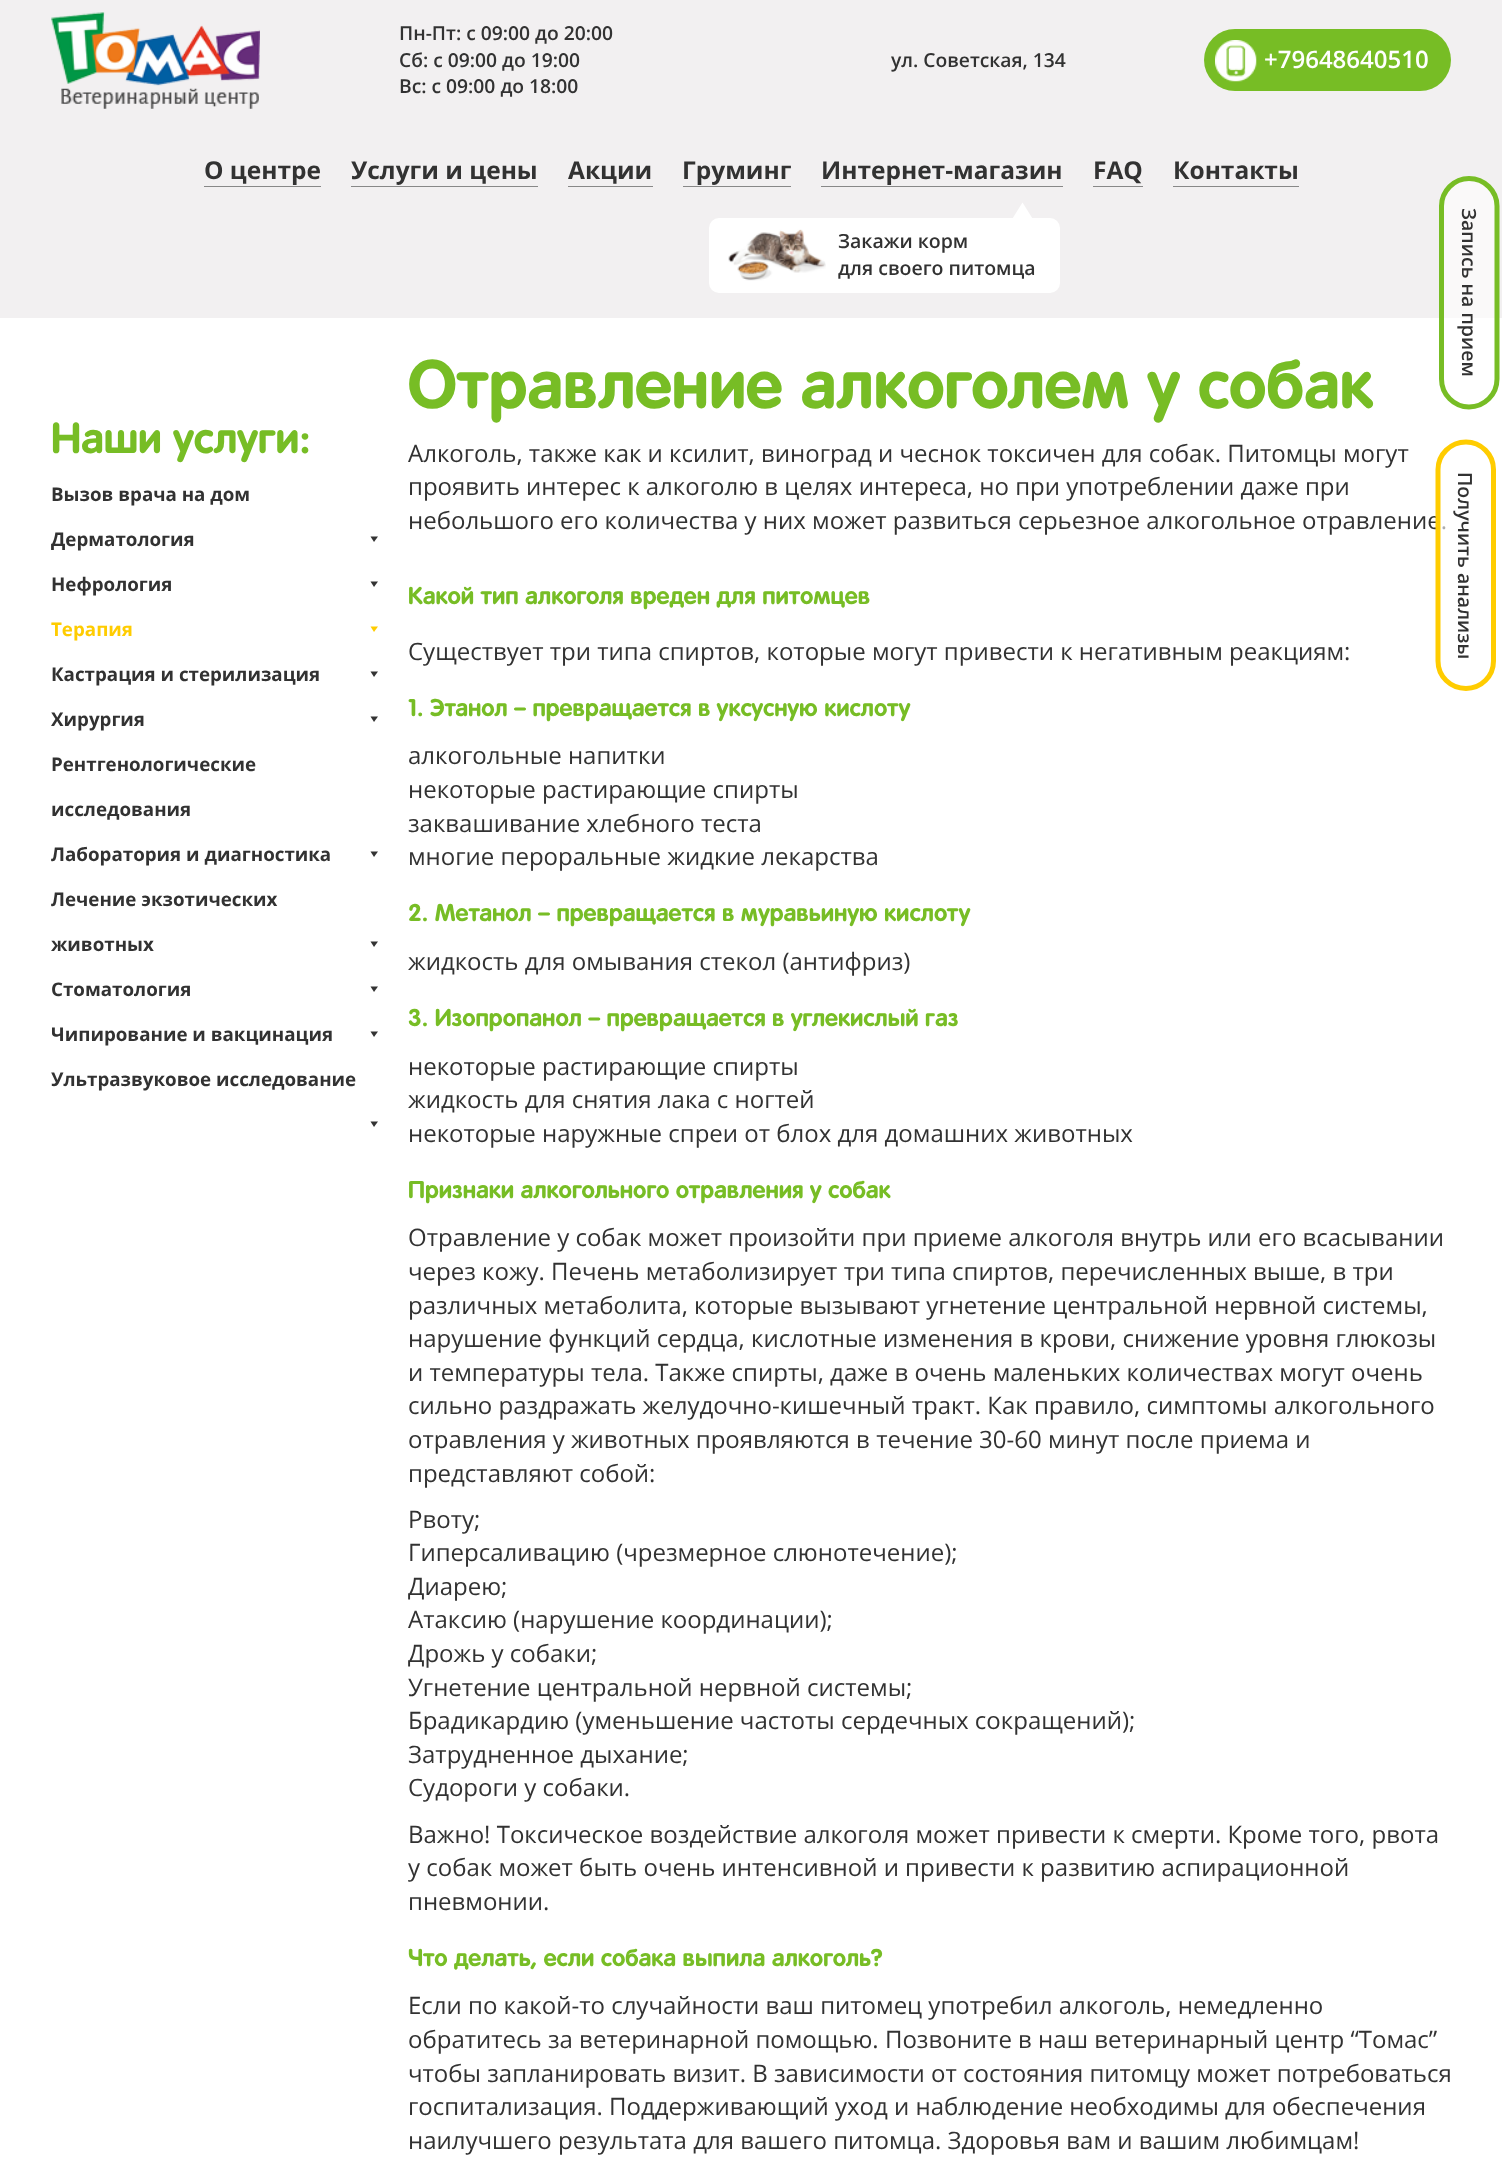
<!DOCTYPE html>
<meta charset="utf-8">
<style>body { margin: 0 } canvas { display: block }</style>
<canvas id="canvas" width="1502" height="2180"></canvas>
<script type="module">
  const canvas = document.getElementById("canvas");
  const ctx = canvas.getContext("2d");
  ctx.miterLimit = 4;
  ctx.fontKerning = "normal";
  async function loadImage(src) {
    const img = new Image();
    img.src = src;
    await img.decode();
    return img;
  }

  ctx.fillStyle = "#ffffff";
  ctx.fillRect(0, 0, 1502, 2180);
  ctx.fillStyle = "#f2f0f1";
  ctx.fillRect(0, 0, 1502, 318);
  ctx.drawImage(await loadImage("img1.png"), 51, 12, 209, 97);
  ctx.font = "600 19.25px Open Sans";
  ctx.fillStyle = "#323232";
  ctx.fillText("Пн-Пт: с 09:00 до 20:00", 399, 40);
  ctx.fillText("Сб: с 09:00 до 19:00", 399, 67);
  ctx.fillText("Вс: с 09:00 до 18:00", 399, 93);
  ctx.fillText("ул. Советская, 134", 891, 67);
  ctx.fillStyle = "#77bd25";
  ctx.beginPath();
  ctx.roundRect(1204, 29, 247, 62, 31);
  ctx.fill();
  ctx.drawImage(await loadImage("img2.png"), 1215, 40, 42, 42);
  ctx.font = "600 24px Open Sans";
  ctx.fillStyle = "#ffffff";
  ctx.fillText("+79648640510", 1264, 68);
  ctx.fillStyle = "#888888";
  ctx.fillRect(204, 186, 117, 1);
  ctx.font = "bold 24.5px Open Sans";
  ctx.fillStyle = "#323232";
  ctx.fillText("О центре", 204, 179);
  ctx.fillStyle = "#888888";
  ctx.fillRect(351, 186, 187, 1);
  ctx.fillStyle = "#323232";
  ctx.fillText("Услуги и цены", 351, 179);
  ctx.fillStyle = "#888888";
  ctx.fillRect(568, 186, 85, 1);
  ctx.fillStyle = "#323232";
  ctx.fillText("Акции", 568, 179);
  ctx.fillStyle = "#888888";
  ctx.fillRect(683, 186, 108, 1);
  ctx.fillStyle = "#323232";
  ctx.fillText("Груминг", 682, 179);
  ctx.fillStyle = "#888888";
  ctx.fillRect(821, 186, 242, 1);
  ctx.fillStyle = "#323232";
  ctx.fillText("Интернет-магазин", 821, 179);
  ctx.fillStyle = "#888888";
  ctx.fillRect(1093, 186, 50, 1);
  ctx.fillStyle = "#323232";
  ctx.fillText("FAQ", 1093, 179);
  ctx.fillStyle = "#888888";
  ctx.fillRect(1173, 186, 126, 1);
  ctx.fillStyle = "#323232";
  ctx.fillText("Контакты", 1173, 179);
  ctx.fillStyle = "#ffffff";
  ctx.beginPath();
  ctx.roundRect(709, 218, 351, 75, 10);
  ctx.fill();
  ctx.beginPath();
  ctx.moveTo(1035, 222.5);
  ctx.lineTo(1010, 222.5);
  ctx.lineTo(1022.5, 202.5);
  ctx.closePath();
  ctx.fill();
  ctx.drawImage(await loadImage("img3.png"), 728, 229, 98, 52);
  ctx.font = "600 19.5px Open Sans";
  ctx.fillStyle = "#323232";
  ctx.fillText("Закажи корм", 838, 248);
  ctx.fillText("для своего питомца", 838, 275);
  ctx.font = "bold 42.75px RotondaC";
  ctx.fillStyle = "#77bd25";
  ctx.fillText("Наши услуги:", 51, 453);
  ctx.font = "bold 18.75px Open Sans";
  ctx.fillStyle = "#323232";
  ctx.fillText("Вызов врача на дом", 51, 501);
  ctx.fillText("Дерматология", 51, 546);
  ctx.fillStyle = "#333333";
  ctx.beginPath();
  ctx.moveTo(378, 536.5);
  ctx.lineTo(374, 542);
  ctx.lineTo(370.5, 536.5);
  ctx.closePath();
  ctx.fill();
  ctx.fillStyle = "#323232";
  ctx.fillText("Нефрология", 51, 591);
  ctx.fillStyle = "#333333";
  ctx.beginPath();
  ctx.moveTo(378, 581.5);
  ctx.lineTo(374, 587);
  ctx.lineTo(370.5, 581.5);
  ctx.closePath();
  ctx.fill();
  ctx.fillStyle = "#ffcc00";
  ctx.fillText("Терапия", 51, 636);
  ctx.beginPath();
  ctx.moveTo(378, 626.5);
  ctx.lineTo(374, 632);
  ctx.lineTo(370.5, 626.5);
  ctx.closePath();
  ctx.fill();
  ctx.fillStyle = "#323232";
  ctx.fillText("Кастрация и стерилизация", 51, 681);
  ctx.fillStyle = "#333333";
  ctx.beginPath();
  ctx.moveTo(378, 671.5);
  ctx.lineTo(374, 677);
  ctx.lineTo(370.5, 671.5);
  ctx.closePath();
  ctx.fill();
  ctx.fillStyle = "#323232";
  ctx.fillText("Хирургия", 51, 726);
  ctx.fillStyle = "#333333";
  ctx.beginPath();
  ctx.moveTo(378, 716.5);
  ctx.lineTo(374, 722);
  ctx.lineTo(370.5, 716.5);
  ctx.closePath();
  ctx.fill();
  ctx.fillStyle = "#323232";
  ctx.fillText("Рентгенологические", 51, 771);
  ctx.fillText("исследования", 51, 816);
  ctx.fillText("Лаборатория и диагностика", 51, 861);
  ctx.fillStyle = "#333333";
  ctx.beginPath();
  ctx.moveTo(378, 851.5);
  ctx.lineTo(374, 857);
  ctx.lineTo(370.5, 851.5);
  ctx.closePath();
  ctx.fill();
  ctx.fillStyle = "#323232";
  ctx.fillText("Лечение экзотических", 51, 906);
  ctx.fillText("животных", 51, 951);
  ctx.fillStyle = "#333333";
  ctx.beginPath();
  ctx.moveTo(378, 941.5);
  ctx.lineTo(374, 947);
  ctx.lineTo(370.5, 941.5);
  ctx.closePath();
  ctx.fill();
  ctx.fillStyle = "#323232";
  ctx.fillText("Стоматология", 51, 996);
  ctx.fillStyle = "#333333";
  ctx.beginPath();
  ctx.moveTo(378, 986.5);
  ctx.lineTo(374, 992);
  ctx.lineTo(370.5, 986.5);
  ctx.closePath();
  ctx.fill();
  ctx.fillStyle = "#323232";
  ctx.fillText("Чипирование и вакцинация", 51, 1041);
  ctx.fillStyle = "#333333";
  ctx.beginPath();
  ctx.moveTo(378, 1031.5);
  ctx.lineTo(374, 1037);
  ctx.lineTo(370.5, 1031.5);
  ctx.closePath();
  ctx.fill();
  ctx.fillStyle = "#323232";
  ctx.fillText("Ультразвуковое исследование", 51, 1086);
  ctx.fillStyle = "#333333";
  ctx.beginPath();
  ctx.moveTo(378, 1121.5);
  ctx.lineTo(374, 1127);
  ctx.lineTo(370.5, 1121.5);
  ctx.closePath();
  ctx.fill();
  ctx.font = "bold 67.25px RotondaC";
  ctx.fillStyle = "#77bd25";
  ctx.fillText("Отравление алкоголем у собак", 408, 408);
  ctx.font = "24px Open Sans";
  ctx.fillStyle = "#323232";
  ctx.fillText("Алкоголь, также как и ксилит, виноград и чеснок токсичен для собак. Питомцы могут", 408, 462);
  ctx.fillText("проявить интерес к алкоголю в целях интереса, но при употреблении даже при", 408, 495);
  ctx.fillText("небольшого его количества у них может развиться серьезное алкогольное отравление.", 408, 529);
  ctx.font = "bold 24px RotondaC";
  ctx.fillStyle = "#77bd25";
  ctx.fillText("Какой тип алкоголя вреден для питомцев", 408, 604);
  ctx.font = "24px Open Sans";
  ctx.fillStyle = "#323232";
  ctx.fillText("Существует три типа спиртов, которые могут привести к негативным реакциям:", 408, 660);
  ctx.font = "bold 24px RotondaC";
  ctx.fillStyle = "#77bd25";
  ctx.fillText("1. Этанол – превращается в уксусную кислоту", 408, 716);
  ctx.font = "24px Open Sans";
  ctx.fillStyle = "#323232";
  ctx.fillText("алкогольные напитки", 408, 764);
  ctx.fillText("некоторые растирающие спирты", 408, 798);
  ctx.fillText("заквашивание хлебного теста", 408, 832);
  ctx.fillText("многие пероральные жидкие лекарства", 408, 865);
  ctx.font = "bold 24px RotondaC";
  ctx.fillStyle = "#77bd25";
  ctx.fillText("2. Метанол – превращается в муравьиную кислоту", 408, 921);
  ctx.font = "24px Open Sans";
  ctx.fillStyle = "#323232";
  ctx.fillText("жидкость для омывания стекол (антифриз)", 408, 970);
  ctx.font = "bold 24px RotondaC";
  ctx.fillStyle = "#77bd25";
  ctx.fillText("3. Изопропанол – превращается в углекислый газ", 408, 1026);
  ctx.font = "24px Open Sans";
  ctx.fillStyle = "#323232";
  ctx.fillText("некоторые растирающие спирты", 408, 1075);
  ctx.fillText("жидкость для снятия лака с ногтей", 408, 1108);
  ctx.fillText("некоторые наружные спреи от блох для домашних животных", 408, 1142);
  ctx.font = "bold 24px RotondaC";
  ctx.fillStyle = "#77bd25";
  ctx.fillText("Признаки алкогольного отравления у собак", 408, 1198);
  ctx.font = "24px Open Sans";
  ctx.fillStyle = "#323232";
  ctx.fillText("Отравление у собак может произойти при приеме алкоголя внутрь или его всасывании", 408, 1246);
  ctx.fillText("через кожу. Печень метаболизирует три типа спиртов, перечисленных выше, в три", 408, 1280);
  ctx.fillText("различных метаболита, которые вызывают угнетение центральной нервной системы,", 408, 1314);
  ctx.fillText("нарушение функций сердца, кислотные изменения в крови, снижение уровня глюкозы", 408, 1347);
  ctx.fillText("и температуры тела. Также спирты, даже в очень маленьких количествах могут очень", 408, 1381);
  ctx.fillText("сильно раздражать желудочно-кишечный тракт. Как правило, симптомы алкогольного", 408, 1414);
  ctx.fillText("отравления у животных проявляются в течение 30-60 минут после приема и", 408, 1448);
  ctx.fillText("представляют собой:", 408, 1482);
  ctx.fillText("Рвоту;", 408, 1528);
  ctx.fillText("Гиперсаливацию (чрезмерное слюнотечение);", 408, 1561);
  ctx.fillText("Диарею;", 408, 1595);
  ctx.fillText("Атаксию (нарушение координации);", 408, 1628);
  ctx.fillText("Дрожь у собаки;", 408, 1662);
  ctx.fillText("Угнетение центральной нервной системы;", 408, 1696);
  ctx.fillText("Брадикардию (уменьшение частоты сердечных сокращений);", 408, 1729);
  ctx.fillText("Затрудненное дыхание;", 408, 1763);
  ctx.fillText("Судороги у собаки.", 408, 1796);
  ctx.fillText("Важно! Токсическое воздействие алкоголя может привести к смерти. Кроме того, рвота", 408, 1843);
  ctx.fillText("у собак может быть очень интенсивной и привести к развитию аспирационной", 408, 1876);
  ctx.fillText("пневмонии.", 408, 1910);
  ctx.font = "bold 24px RotondaC";
  ctx.fillStyle = "#77bd25";
  ctx.fillText("Что делать, если собака выпила алкоголь?", 408, 1966);
  ctx.font = "24px Open Sans";
  ctx.fillStyle = "#323232";
  ctx.fillText("Если по какой-то случайности ваш питомец употребил алкоголь, немедленно", 408, 2014);
  ctx.fillText("обратитесь за ветеринарной помощью. Позвоните в наш ветеринарный центр “Томас”", 408, 2048);
  ctx.fillText("чтобы запланировать визит. В зависимости от состояния питомцу может потребоваться", 408, 2082);
  ctx.fillText("госпитализация. Поддерживающий уход и наблюдение необходимы для обеспечения", 408, 2115);
  ctx.fillText("наилучшего результата для вашего питомца. Здоровья вам и вашим любимцам!", 408, 2149);
  ctx.fillStyle = "rgba(255, 255, 255, 0.6)";
  ctx.beginPath();
  ctx.moveTo(1499, 206);
  ctx.lineTo(1499, 379);
  ctx.bezierCurveTo(1499, 396, 1486, 409, 1469, 409);
  ctx.bezierCurveTo(1452, 409, 1439, 396, 1439, 379);
  ctx.lineTo(1439, 206);
  ctx.bezierCurveTo(1439, 189, 1452, 176, 1469, 176);
  ctx.bezierCurveTo(1486, 176, 1499, 189, 1499, 206);
  ctx.closePath();
  ctx.fill();
  ctx.beginPath();
  ctx.moveTo(1497, 206);
  ctx.lineTo(1497, 379);
  ctx.bezierCurveTo(1497, 394.5, 1484.5, 407, 1469, 407);
  ctx.bezierCurveTo(1454, 407, 1441.5, 394.5, 1441.5, 379);
  ctx.lineTo(1441.5, 206);
  ctx.bezierCurveTo(1441.5, 191, 1454, 178.5, 1469, 178.5);
  ctx.bezierCurveTo(1484.5, 178.5, 1497, 191, 1497, 206);
  ctx.closePath();
  ctx.strokeStyle = "#77bd25";
  ctx.lineWidth = 5;
  ctx.stroke();
  ctx.font = "600 19.5px Open Sans";
  ctx.fillStyle = "#323232";
  ctx.save();
  ctx.translate(1462, 208);
  ctx.rotate(90 * Math.PI / 180);
  ctx.fillText("Запись на прием", 0, 0);
  ctx.restore();
  ctx.fillStyle = "rgba(255, 255, 255, 0.6)";
  ctx.beginPath();
  ctx.moveTo(1496, 470);
  ctx.lineTo(1496, 661);
  ctx.bezierCurveTo(1496, 678, 1482, 691, 1466, 691);
  ctx.bezierCurveTo(1449, 691, 1436, 678, 1436, 661);
  ctx.lineTo(1436, 470);
  ctx.bezierCurveTo(1436, 453, 1449, 440, 1466, 440);
  ctx.bezierCurveTo(1482, 440, 1496, 453, 1496, 470);
  ctx.closePath();
  ctx.fill();
  ctx.beginPath();
  ctx.moveTo(1493.5, 469.5);
  ctx.lineTo(1493.5, 661);
  ctx.bezierCurveTo(1493.5, 676.5, 1481, 688.5, 1466, 688.5);
  ctx.bezierCurveTo(1450.5, 688.5, 1438, 676.5, 1438, 661);
  ctx.lineTo(1438, 469.5);
  ctx.bezierCurveTo(1438, 454.5, 1450.5, 442, 1466, 442);
  ctx.bezierCurveTo(1481, 442, 1493.5, 454.5, 1493.5, 469.5);
  ctx.closePath();
  ctx.strokeStyle = "#ffcc00";
  ctx.stroke();
  ctx.fillStyle = "#323232";
  ctx.save();
  ctx.translate(1458, 472);
  ctx.rotate(90 * Math.PI / 180);
  ctx.fillText("Получить анализы", 0, 0);
  ctx.restore();
</script>
